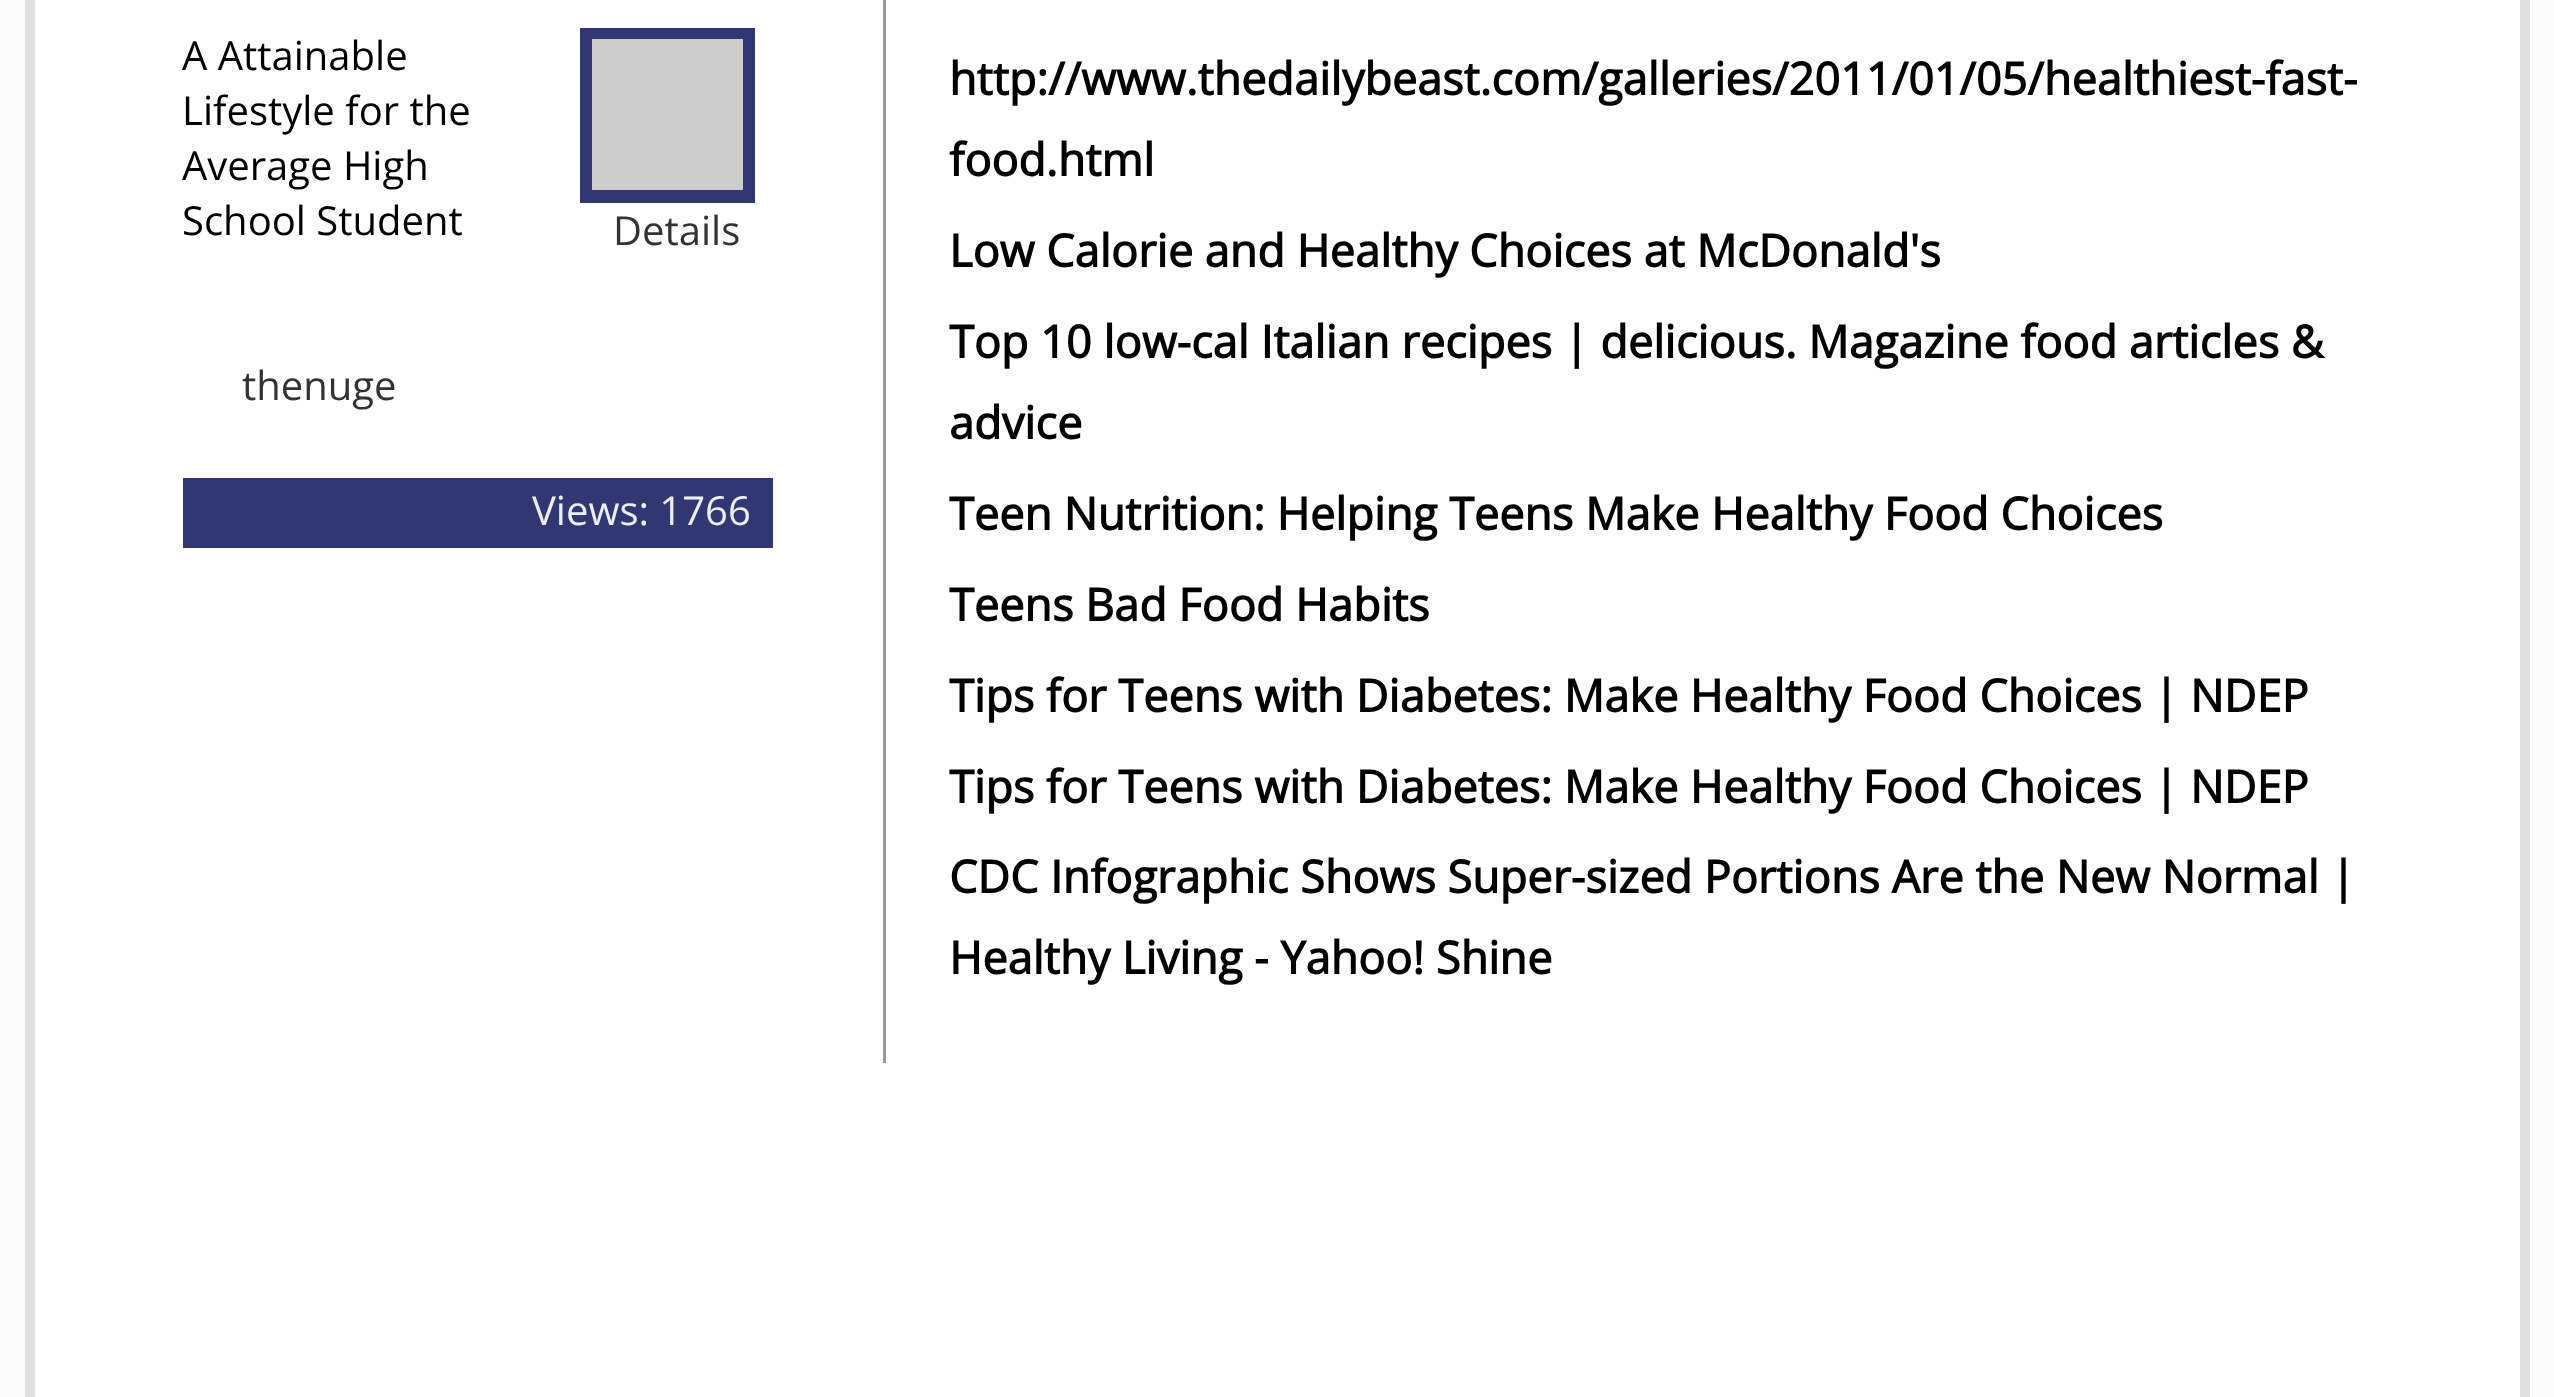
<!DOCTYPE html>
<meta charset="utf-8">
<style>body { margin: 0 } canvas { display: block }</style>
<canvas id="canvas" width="2554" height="1397"></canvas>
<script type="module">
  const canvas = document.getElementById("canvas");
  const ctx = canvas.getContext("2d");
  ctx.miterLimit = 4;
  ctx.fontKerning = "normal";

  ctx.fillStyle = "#fbfbfb";
  ctx.fillRect(0, 0, 2554, 1397);
  ctx.fillStyle = "#ffffff";
  ctx.fillRect(35, 0, 2485, 1397);
  ctx.fillStyle = "#e0e0e0";
  ctx.fillRect(2520, 0, 10, 1397);
  ctx.fillRect(25, 0, 10, 1397);
  ctx.font = "40px Open Sans";
  ctx.fillStyle = "#000000";
  ctx.fillText("A Attainable", 182, 70);
  ctx.fillText("Lifestyle for the", 182, 125);
  ctx.fillText("Average High", 182, 180);
  ctx.fillText("School Student", 182, 235);
  ctx.fillStyle = "#313773";
  ctx.fillRect(580, 28, 175, 175);
  ctx.fillStyle = "#cccccc";
  ctx.fillRect(592, 39, 151, 151);
  ctx.fillStyle = "#333333";
  ctx.fillText("Details", 613, 245);
  ctx.fillText("thenuge", 242, 400);
  ctx.fillStyle = "#313773";
  ctx.fillRect(183, 478, 590, 70);
  ctx.fillStyle = "#edeff8";
  ctx.fillText("Views: 1766", 532, 525);
  ctx.fillStyle = "#999999";
  ctx.fillRect(883, 0, 3, 1063);
  ctx.font = "bold 45px Open Sans";
  ctx.fillStyle = "#000000";
  ctx.fillText("http://www.thedailybeast.com/galleries/2011/01/05/healthiest-fast-", 949, 95);
  ctx.fillText("food.html", 949, 176);
  ctx.fillText("Low Calorie and Healthy Choices at McDonald's", 949, 267);
  ctx.fillText("Top 10 low-cal Italian recipes | delicious. Magazine food articles &", 949, 358);
  ctx.fillText("advice", 949, 439);
  ctx.fillText("Teen Nutrition: Helping Teens Make Healthy Food Choices", 949, 530);
  ctx.fillText("Teens Bad Food Habits", 949, 621);
  ctx.fillText("Tips for Teens with Diabetes: Make Healthy Food Choices | NDEP", 949, 712);
  ctx.fillText("Tips for Teens with Diabetes: Make Healthy Food Choices | NDEP", 949, 803);
  ctx.fillText("CDC Infographic Shows Super-sized Portions Are the New Normal |", 949, 893);
  ctx.fillText("Healthy Living - Yahoo! Shine", 949, 974);
</script>
